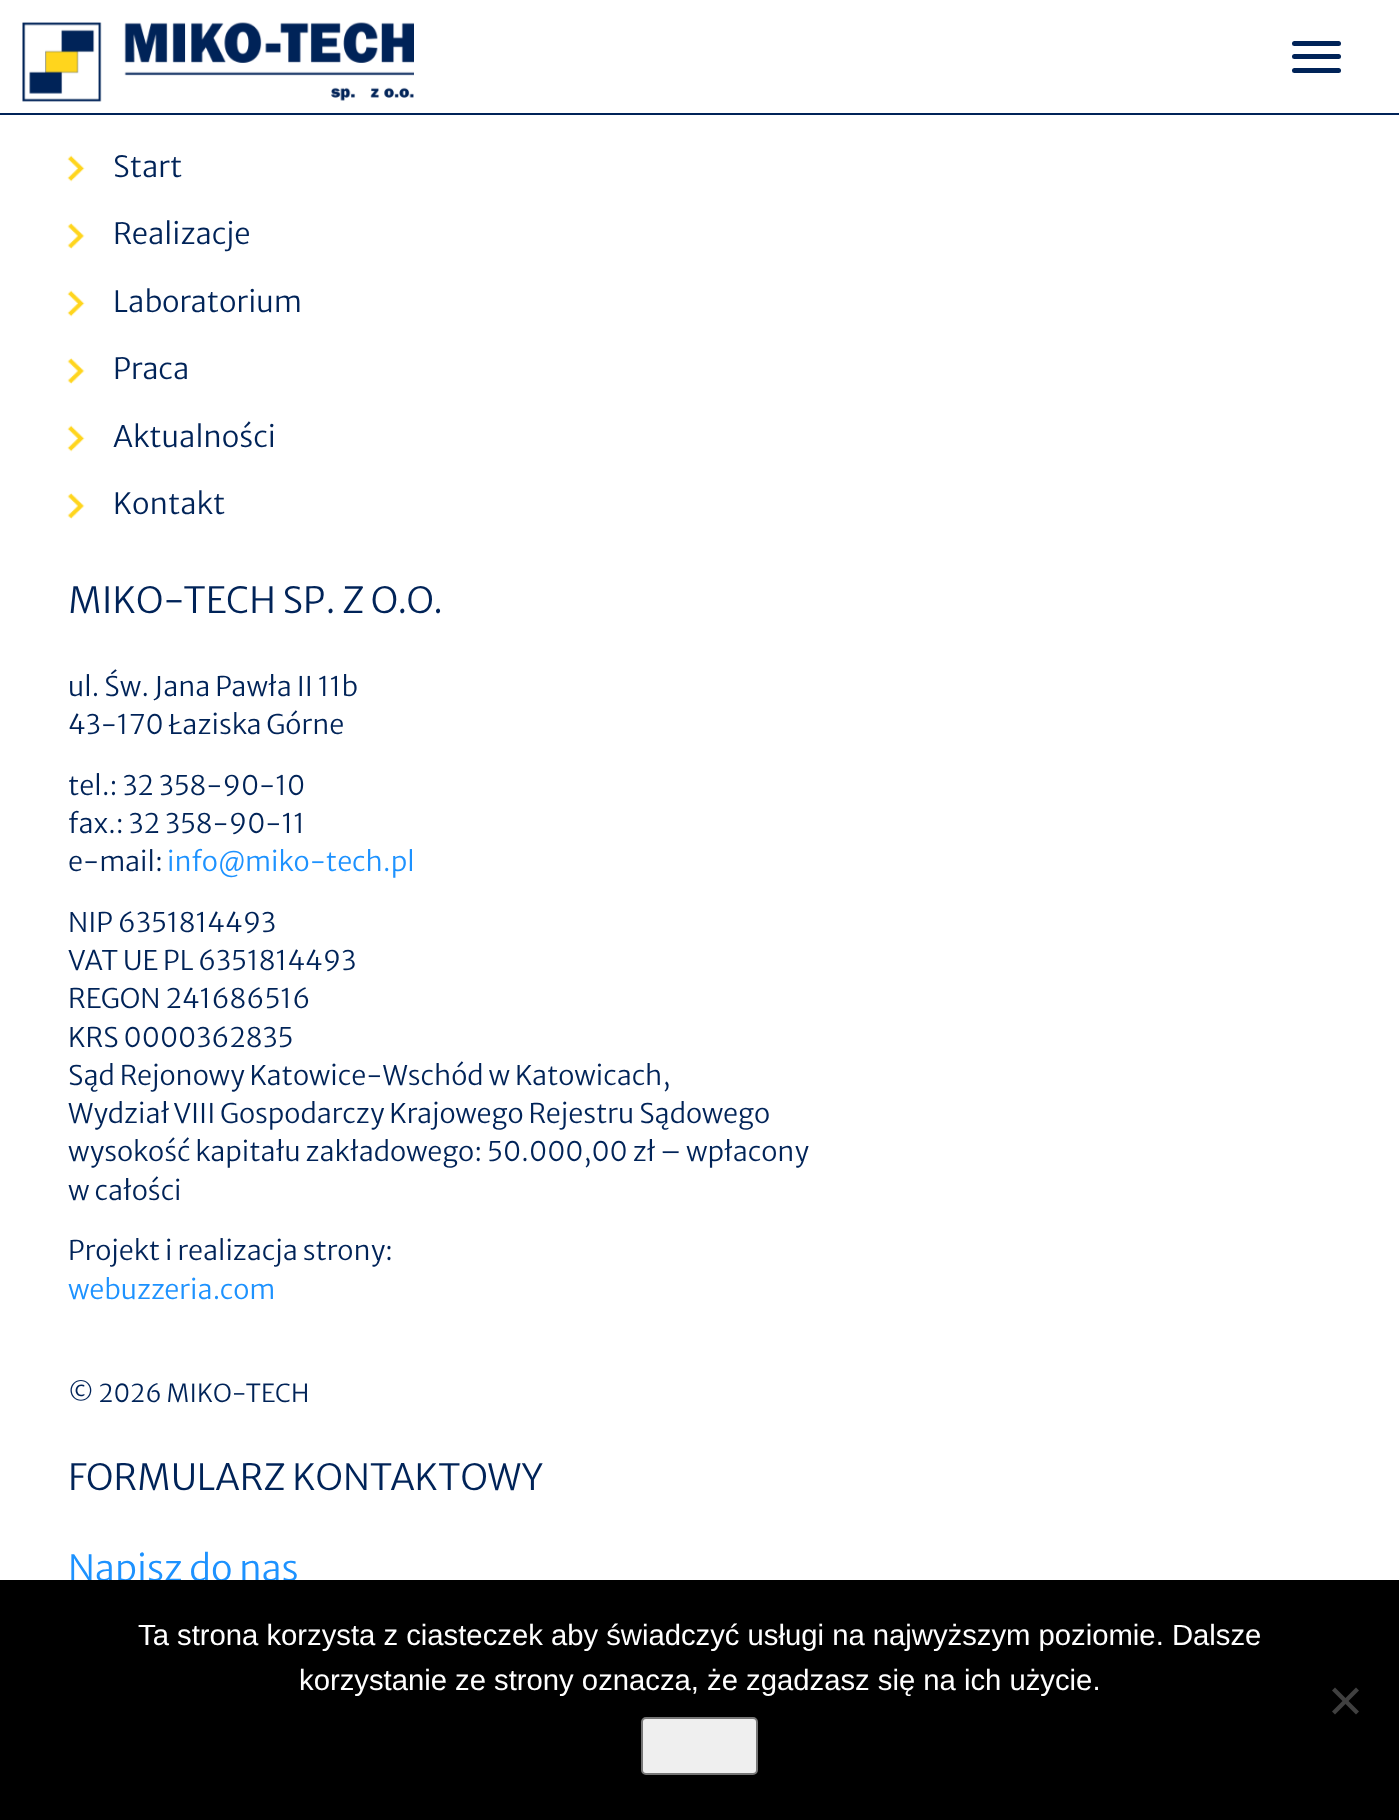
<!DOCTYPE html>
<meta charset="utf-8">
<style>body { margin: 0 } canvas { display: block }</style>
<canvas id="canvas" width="1399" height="1820"></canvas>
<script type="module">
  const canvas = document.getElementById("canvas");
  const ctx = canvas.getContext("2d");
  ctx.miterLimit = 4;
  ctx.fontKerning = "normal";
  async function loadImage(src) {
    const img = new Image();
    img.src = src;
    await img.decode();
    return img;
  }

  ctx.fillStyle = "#ffffff";
  ctx.fillRect(0, 0, 1399, 1820);
  ctx.fillStyle = "#002358";
  ctx.fillRect(0, 113, 1399, 2);
  ctx.drawImage(await loadImage("img1.png"), 22, 22, 392, 80);
  ctx.beginPath();
  ctx.roundRect(1292, 41, 49, 5, 2.5);
  ctx.fill();
  ctx.beginPath();
  ctx.roundRect(1292, 54, 49, 5, 2.5);
  ctx.fill();
  ctx.beginPath();
  ctx.roundRect(1292, 68, 49, 5, 2.5);
  ctx.fill();
  ctx.drawImage(await loadImage("img2.png"), 67, 155, 18, 27);
  ctx.font = "300 29.25px Merriweather Sans";
  ctx.fillText("Start", 113, 177);
  ctx.drawImage(await loadImage("img3.png"), 67, 223, 18, 26);
  ctx.fillText("Realizacje", 113, 244);
  ctx.drawImage(await loadImage("img2.png"), 67, 290, 18, 27);
  ctx.fillText("Laboratorium", 113, 312);
  ctx.drawImage(await loadImage("img3.png"), 67, 358, 18, 26);
  ctx.fillText("Praca", 113, 379);
  ctx.drawImage(await loadImage("img2.png"), 67, 425, 18, 27);
  ctx.fillText("Aktualności", 113, 447);
  ctx.drawImage(await loadImage("img3.png"), 67, 493, 18, 26);
  ctx.fillText("Kontakt", 113, 514);
  ctx.font = "300 36px Merriweather Sans";
  ctx.fillText("MIKO-TECH SP. Z O.O.", 68, 613);
  ctx.font = "300 27px Merriweather Sans";
  ctx.fillText("ul. Św. Jana Pawła II 11b", 68, 696);
  ctx.fillText("43-170 Łaziska Górne", 68, 734);
  ctx.fillText("tel.: 32 358-90-10", 68, 795);
  ctx.fillText("fax.: 32 358-90-11", 68, 833);
  ctx.fillText("e-mail:", 68, 871);
  ctx.fillStyle = "#1d92ff";
  ctx.fillText("info@miko-tech.pl", 167, 871);
  ctx.fillStyle = "#002358";
  ctx.fillText("NIP 6351814493", 68, 932);
  ctx.fillText("VAT UE PL 6351814493", 68, 970);
  ctx.fillText("REGON 241686516", 68, 1008);
  ctx.fillText("KRS 0000362835", 68, 1047);
  ctx.fillText("Sąd Rejonowy Katowice-Wschód w Katowicach,", 68, 1085);
  ctx.fillText("Wydział VIII Gospodarczy Krajowego Rejestru Sądowego", 68, 1123);
  ctx.fillText("wysokość kapitału zakładowego: 50.000,00 zł – wpłacony", 68, 1161);
  ctx.fillText("w całości", 68, 1200);
  ctx.fillText("Projekt i realizacja strony:", 68, 1260);
  ctx.fillStyle = "#1d92ff";
  ctx.fillText("webuzzeria.com", 68, 1299);
  ctx.font = "300 24.75px Merriweather Sans";
  ctx.fillStyle = "#002358";
  ctx.fillText("© 2026 MIKO-TECH", 68, 1402);
  ctx.font = "300 36px Merriweather Sans";
  ctx.fillText("FORMULARZ KONTAKTOWY", 68, 1490);
  ctx.fillStyle = "#1d92ff";
  ctx.fillText("Napisz do nas", 68, 1581);
  ctx.fillStyle = "#000000";
  ctx.fillRect(0, 1580, 1399, 240);
  ctx.font = "29.25px Liberation Sans";
  ctx.fillStyle = "#ffffff";
  ctx.fillText("Ta strona korzysta z ciasteczek aby świadczyć usługi na najwyższym poziomie. Dalsze", 138, 1645);
  ctx.fillText("korzystanie ze strony oznacza, że zgadzasz się na ich użycie.", 299, 1690);
  ctx.fillStyle = "#404040";
  ctx.beginPath();
  ctx.moveTo(1356, 1687.5);
  ctx.lineTo(1359, 1690.5);
  ctx.lineTo(1335, 1714.5);
  ctx.lineTo(1332, 1711.5);
  ctx.closePath();
  ctx.fill();
  ctx.beginPath();
  ctx.moveTo(1332, 1690.5);
  ctx.lineTo(1335, 1687.5);
  ctx.lineTo(1359, 1711.5);
  ctx.lineTo(1356, 1714.5);
  ctx.closePath();
  ctx.fill();
  ctx.fillStyle = "#efefef";
  ctx.beginPath();
  ctx.roundRect(642, 1718, 115, 56, 4);
  ctx.fill();
  ctx.strokeStyle = "#767676";
  ctx.lineWidth = 2;
  ctx.stroke();
</script>
